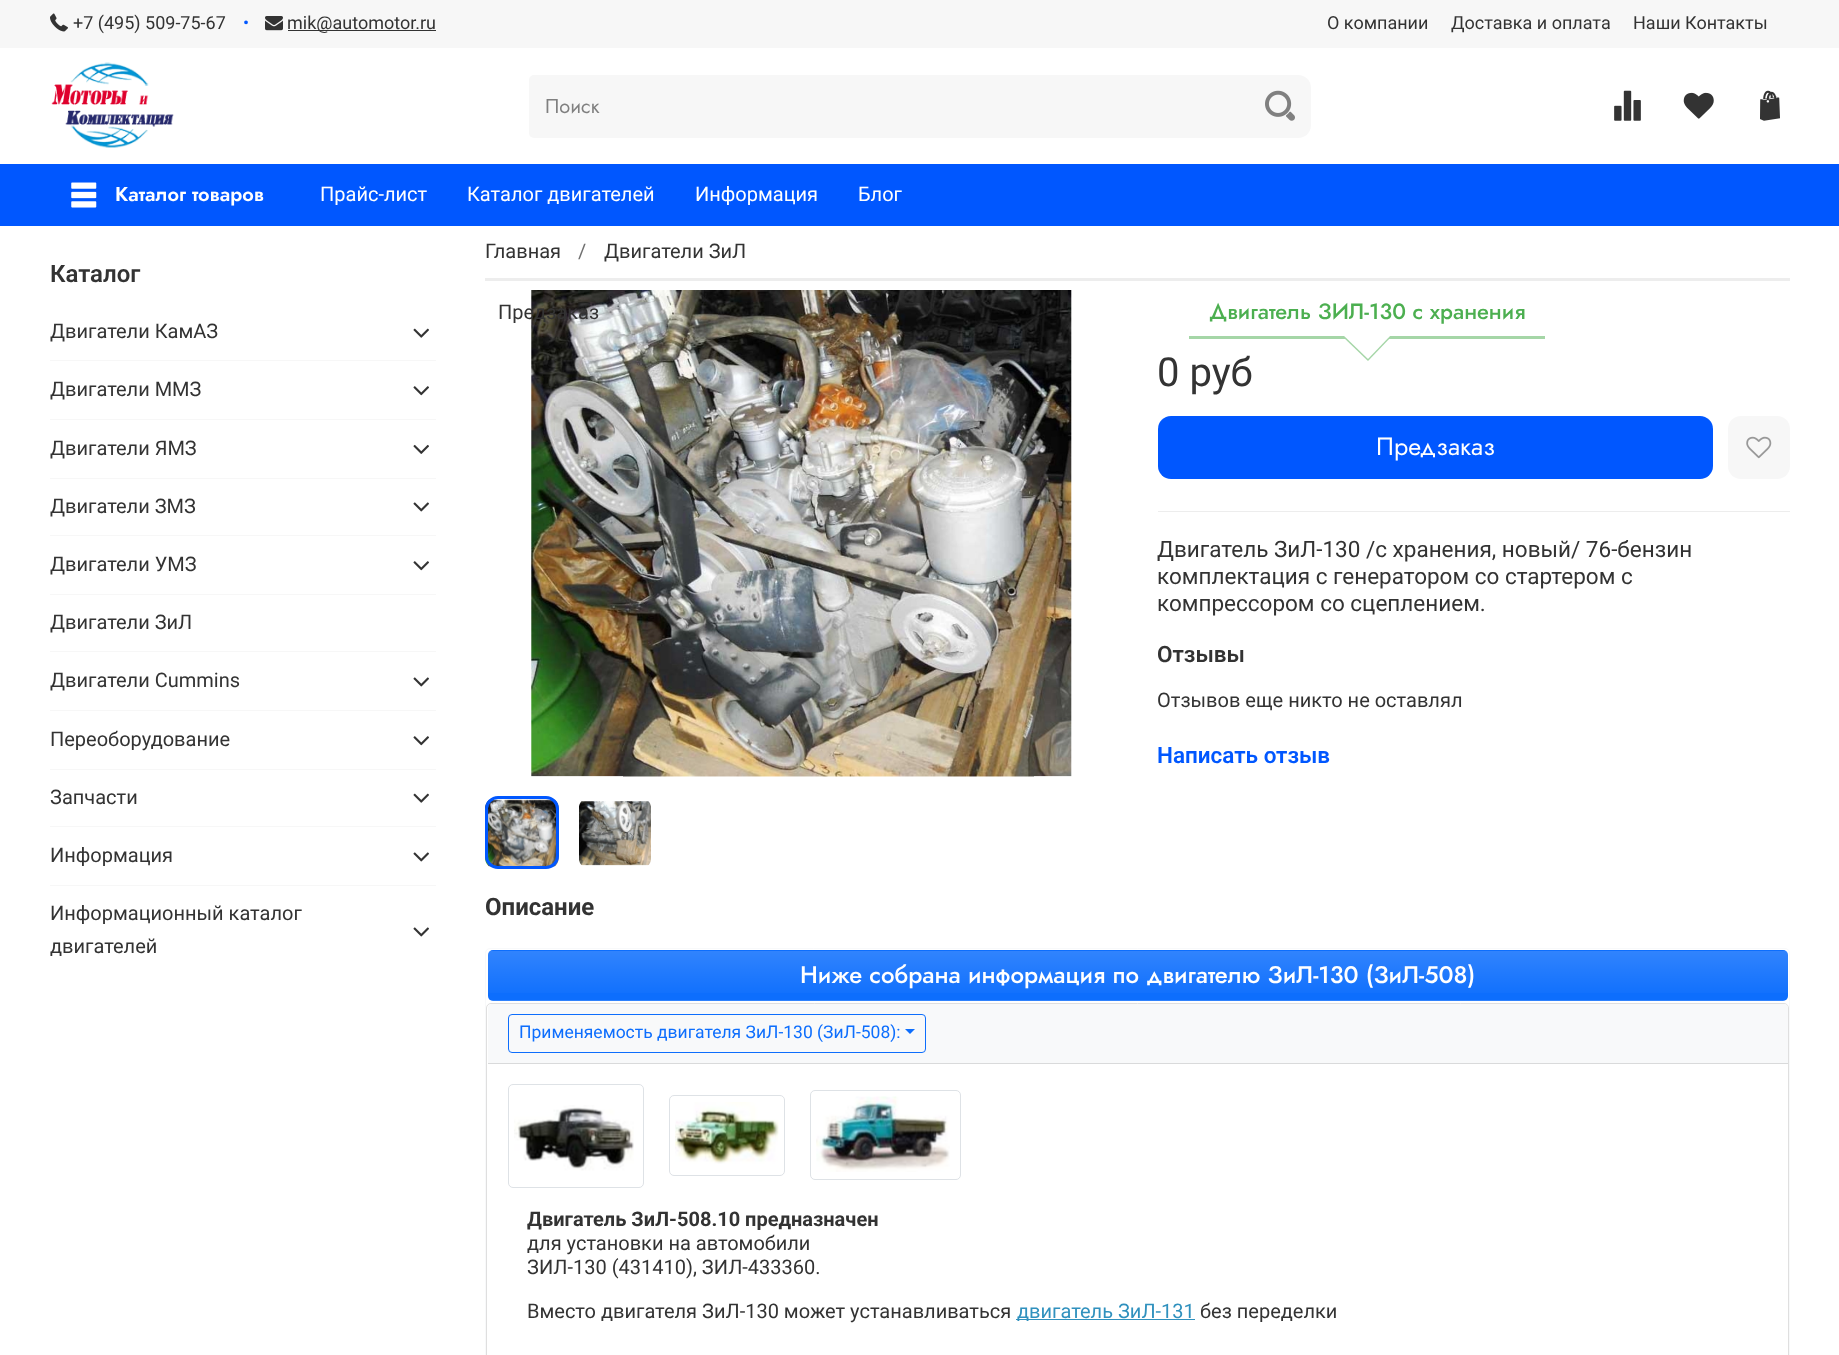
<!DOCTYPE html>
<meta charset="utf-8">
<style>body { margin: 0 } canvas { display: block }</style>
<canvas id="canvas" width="1839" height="1355"></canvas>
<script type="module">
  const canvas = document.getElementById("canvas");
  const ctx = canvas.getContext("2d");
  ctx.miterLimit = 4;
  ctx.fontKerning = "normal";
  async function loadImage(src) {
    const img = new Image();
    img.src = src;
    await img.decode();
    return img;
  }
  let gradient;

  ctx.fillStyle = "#ffffff";
  ctx.fillRect(0, 0, 1839, 1355);
  ctx.fillStyle = "#f7f7f7";
  ctx.fillRect(0, 0, 1839, 48);
  ctx.drawImage(await loadImage("img1.png"), 50, 13, 18, 19);
  ctx.font = "18px Roboto";
  ctx.fillStyle = "#333333";
  ctx.fillText("+7 (495) 509-75-67", 73, 29);
  ctx.fillStyle = "#0057ff";
  ctx.fillText("•", 243, 29);
  ctx.drawImage(await loadImage("img2.png"), 265, 16, 18, 15);
  ctx.fillStyle = "#333333";
  ctx.fillRect(288, 30, 148, 1);
  ctx.fillText("mik@automotor.ru", 287, 29);
  ctx.fillText("О компании", 1327, 29);
  ctx.fillText("Доставка и оплата", 1451, 29);
  ctx.fillText("Наши Контакты", 1633, 29);
  ctx.drawImage(await loadImage("img3.png"), 51, 62, 123, 86);
  ctx.fillStyle = "#f7f7f7";
  ctx.beginPath();
  ctx.roundRect(529, 75, 720, 63, [5, 0, 0, 5]);
  ctx.fill();
  ctx.font = "20px Jost";
  ctx.fillStyle = "#808080";
  ctx.fillText("Поиск", 545, 113);
  ctx.fillStyle = "#f7f7f7";
  ctx.beginPath();
  ctx.roundRect(1249, 75, 62, 63, [0, 13, 13, 0]);
  ctx.fill();
  ctx.drawImage(await loadImage("img4.png"), 1265, 90, 30, 31);
  ctx.drawImage(await loadImage("img5.png"), 1614, 90, 27, 31);
  ctx.drawImage(await loadImage("img6.png"), 1683, 92, 31, 27);
  ctx.drawImage(await loadImage("img7.png"), 1760, 90, 20, 31);
  ctx.fillStyle = "#0057ff";
  ctx.fillRect(0, 164, 1839, 62);
  ctx.drawImage(await loadImage("img8.png"), 71, 182, 26, 26);
  ctx.font = "600 20px Jost";
  ctx.fillStyle = "#ffffff";
  ctx.fillText("Каталог товаров", 115, 201);
  ctx.font = "20px Roboto";
  ctx.fillText("Прайс-лист", 320, 201);
  ctx.fillText("Каталог двигателей", 467, 201);
  ctx.fillText("Информация", 695, 201);
  ctx.fillText("Блог", 858, 201);
  ctx.font = "600 24px Roboto";
  ctx.fillStyle = "#333333";
  ctx.fillText("Каталог", 50, 282);
  ctx.fillStyle = "#f7f7f7";
  ctx.fillRect(50, 360, 386, 1);
  ctx.font = "20px Roboto";
  ctx.fillStyle = "#333333";
  ctx.fillText("Двигатели КамАЗ", 50, 338);
  ctx.drawImage(await loadImage("img9.png"), 413, 328, 16, 10);
  ctx.fillStyle = "#f7f7f7";
  ctx.fillRect(50, 419, 386, 1);
  ctx.fillStyle = "#333333";
  ctx.fillText("Двигатели ММЗ", 50, 396);
  ctx.drawImage(await loadImage("img10.png"), 413, 386, 16, 10);
  ctx.fillStyle = "#f7f7f7";
  ctx.fillRect(50, 478, 386, 1);
  ctx.fillStyle = "#333333";
  ctx.fillText("Двигатели ЯМЗ", 50, 455);
  ctx.drawImage(await loadImage("img11.png"), 413, 444, 16, 10);
  ctx.fillStyle = "#f7f7f7";
  ctx.fillRect(50, 535, 386, 1);
  ctx.fillStyle = "#333333";
  ctx.fillText("Двигатели ЗМЗ", 50, 513);
  ctx.drawImage(await loadImage("img12.png"), 413, 502, 16, 10);
  ctx.fillStyle = "#f7f7f7";
  ctx.fillRect(50, 594, 386, 1);
  ctx.fillStyle = "#333333";
  ctx.fillText("Двигатели УМЗ", 50, 571);
  ctx.drawImage(await loadImage("img10.png"), 413, 561, 16, 10);
  ctx.fillStyle = "#f7f7f7";
  ctx.fillRect(50, 651, 386, 1);
  ctx.fillStyle = "#333333";
  ctx.fillText("Двигатели ЗиЛ", 50, 629);
  ctx.fillStyle = "#f7f7f7";
  ctx.fillRect(50, 710, 386, 1);
  ctx.fillStyle = "#333333";
  ctx.fillText("Двигатели Cummins", 50, 687);
  ctx.drawImage(await loadImage("img12.png"), 413, 677, 16, 10);
  ctx.fillStyle = "#f7f7f7";
  ctx.fillRect(50, 769, 386, 1);
  ctx.fillStyle = "#333333";
  ctx.fillText("Переоборудование", 50, 746);
  ctx.drawImage(await loadImage("img10.png"), 413, 736, 16, 10);
  ctx.fillStyle = "#f7f7f7";
  ctx.fillRect(50, 826, 386, 1);
  ctx.fillStyle = "#333333";
  ctx.fillText("Запчасти", 50, 804);
  ctx.drawImage(await loadImage("img9.png"), 413, 793, 16, 10);
  ctx.fillStyle = "#f7f7f7";
  ctx.fillRect(50, 885, 386, 1);
  ctx.fillStyle = "#333333";
  ctx.fillText("Информация", 50, 862);
  ctx.drawImage(await loadImage("img12.png"), 413, 852, 16, 10);
  ctx.fillText("Информационный каталог", 50, 920);
  ctx.fillText("двигателей", 50, 953);
  ctx.drawImage(await loadImage("img12.png"), 413, 927, 16, 10);
  ctx.fillText("Главная", 485, 258);
  ctx.fillStyle = "#707070";
  ctx.fillText("/", 578, 258);
  ctx.fillStyle = "#333333";
  ctx.fillText("Двигатели ЗиЛ", 604, 258);
  ctx.fillStyle = "#ededed";
  ctx.fillRect(485, 278, 1305, 3);
  ctx.drawImage(await loadImage("img13.png"), 531, 290, 541, 487);
  ctx.fillStyle = "#333333";
  ctx.fillText("Предзаказ", 498, 319);
  ctx.drawImage(await loadImage("img14.png"), 485, 799, 74, 68);
  ctx.beginPath();
  ctx.roundRect(486.5, 797.5, 71, 70, 11.5);
  ctx.strokeStyle = "#0057ff";
  ctx.lineWidth = 3;
  ctx.stroke();
  ctx.drawImage(await loadImage("img15.png"), 579, 801, 72, 65);
  ctx.fillStyle = "#a5d6a7";
  ctx.fillRect(1189, 336, 356, 3);
  ctx.font = "500 22px Jost";
  ctx.fillStyle = "#4caf50";
  ctx.fillText("Двигатель ЗИЛ-130 с хранения", 1209, 319);
  ctx.fillStyle = "#a5d6a7";
  ctx.beginPath();
  ctx.moveTo(1342, 336);
  ctx.lineTo(1392, 336);
  ctx.lineTo(1368, 361);
  ctx.closePath();
  ctx.fill();
  ctx.fillStyle = "#ffffff";
  ctx.beginPath();
  ctx.moveTo(1342, 334);
  ctx.lineTo(1392, 334);
  ctx.lineTo(1368, 359);
  ctx.closePath();
  ctx.fill();
  ctx.font = "40px Roboto";
  ctx.fillStyle = "#333333";
  ctx.fillText("0 руб", 1157, 386);
  ctx.fillStyle = "#0057ff";
  ctx.beginPath();
  ctx.roundRect(1158, 416, 555, 63, 13);
  ctx.fill();
  ctx.font = "25px Jost";
  ctx.fillStyle = "#ffffff";
  ctx.fillText("Предзаказ", 1376, 455);
  ctx.fillStyle = "#f7f7f7";
  ctx.beginPath();
  ctx.roundRect(1728, 416, 62, 63, 13);
  ctx.fill();
  ctx.drawImage(await loadImage("img16.png"), 1746, 436, 26, 23);
  ctx.fillStyle = "#ededed";
  ctx.fillRect(1158, 511, 632, 1);
  ctx.font = "22.5px Roboto";
  ctx.fillStyle = "#333333";
  ctx.fillText("Двигатель ЗиЛ-130 /с хранения, новый/ 76-бензин", 1157, 557);
  ctx.fillText("комплектация с генератором со стартером с", 1157, 584);
  ctx.fillText("компрессором со сцеплением.", 1157, 611);
  ctx.font = "600 22.5px Roboto";
  ctx.fillText("Отзывы", 1157, 662);
  ctx.font = "20px Roboto";
  ctx.fillText("Отзывов еще никто не оставлял", 1157, 707);
  ctx.font = "600 22.5px Roboto";
  ctx.fillStyle = "#0057ff";
  ctx.fillText("Написать отзыв", 1157, 763);
  ctx.font = "bold 24px Roboto";
  ctx.fillStyle = "#333333";
  ctx.fillText("Описание", 485, 915);
  ctx.beginPath();
  ctx.roundRect(485.5, 948.5, 1304, 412, 4.5);
  ctx.strokeStyle = "#f8f9fa";
  ctx.lineWidth = 1;
  ctx.stroke();
  ctx.fillStyle = "#0d6efd";
  ctx.beginPath();
  ctx.roundRect(488, 950, 1300, 51, 5);
  ctx.fill();
  ctx.save();
  ctx.beginPath();
  ctx.roundRect(488, 950, 1300, 51, 5);
  ctx.clip();
  gradient = ctx.createLinearGradient(1138, 951, 1138, 1000);
  gradient.addColorStop(0, "rgba(255, 255, 255, 0.15)");
  gradient.addColorStop(1, "rgba(255, 255, 255, 0)");
  ctx.fillStyle = gradient;
  ctx.fillRect(488, 951, 1300, 42);
  gradient = ctx.createLinearGradient(1138, 1000, 1138, 1049);
  gradient.addColorStop(0, "rgba(255, 255, 255, 0.15)");
  gradient.addColorStop(1, "rgba(255, 255, 255, 0)");
  ctx.fillStyle = gradient;
  ctx.fillRect(488, 1000, 1300, 1);
  ctx.restore();
  ctx.font = "500 24px Jost";
  ctx.fillStyle = "#ffffff";
  ctx.fillText("Ниже собрана информация по двигателю ЗиЛ-130 (ЗиЛ-508)", 800, 983);
  ctx.beginPath();
  ctx.roundRect(486.5, 1003.5, 1302, 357, 4.5);
  ctx.strokeStyle = "#dfdfdf";
  ctx.stroke();
  ctx.fillStyle = "#f8f9fa";
  ctx.beginPath();
  ctx.roundRect(488, 1004, 1300, 60, [4, 4, 0, 0]);
  ctx.fill();
  ctx.fillStyle = "#d9dadb";
  ctx.fillRect(488, 1063, 1300, 1);
  ctx.beginPath();
  ctx.roundRect(508.5, 1014.5, 417, 38, 3.5);
  ctx.strokeStyle = "#0d6efd";
  ctx.stroke();
  ctx.font = "17.5px Roboto";
  ctx.fillStyle = "#0d6efd";
  ctx.fillText("Применяемость двигателя ЗиЛ-130 (ЗиЛ-508):", 519, 1038);
  ctx.beginPath();
  ctx.moveTo(905, 1029);
  ctx.lineTo(915, 1029);
  ctx.lineTo(910, 1034);
  ctx.closePath();
  ctx.fill();
  ctx.beginPath();
  ctx.roundRect(508.5, 1084.5, 135, 103, 4.5);
  ctx.strokeStyle = "#dee2e6";
  ctx.stroke();
  ctx.beginPath();
  ctx.roundRect(669.5, 1095.5, 115, 80, 4.5);
  ctx.stroke();
  ctx.beginPath();
  ctx.roundRect(810.5, 1090.5, 150, 89, 4.5);
  ctx.stroke();
  ctx.drawImage(await loadImage("img17.png"), 514, 1105, 120, 66);
  ctx.drawImage(await loadImage("img18.png"), 675, 1102, 104, 62);
  ctx.drawImage(await loadImage("img19.png"), 816, 1096, 134, 76);
  ctx.font = "bold 20px Roboto";
  ctx.fillStyle = "#333333";
  ctx.fillText("Двигатель ЗиЛ-508.10 предназначен", 527, 1226);
  ctx.font = "20px Roboto";
  ctx.fillText("для установки на автомобили", 527, 1250);
  ctx.fillText("ЗИЛ-130 (431410), ЗИЛ-433360.", 527, 1274);
  ctx.fillText("Вместо двигателя ЗиЛ-130 может устанавливаться", 527, 1318);
  ctx.fillStyle = "#3091be";
  ctx.fillRect(1016, 1319, 179, 1);
  ctx.fillText("двигатель ЗиЛ-131", 1017, 1318);
  ctx.fillStyle = "#333333";
  ctx.fillText("без переделки", 1200, 1318);
</script>
